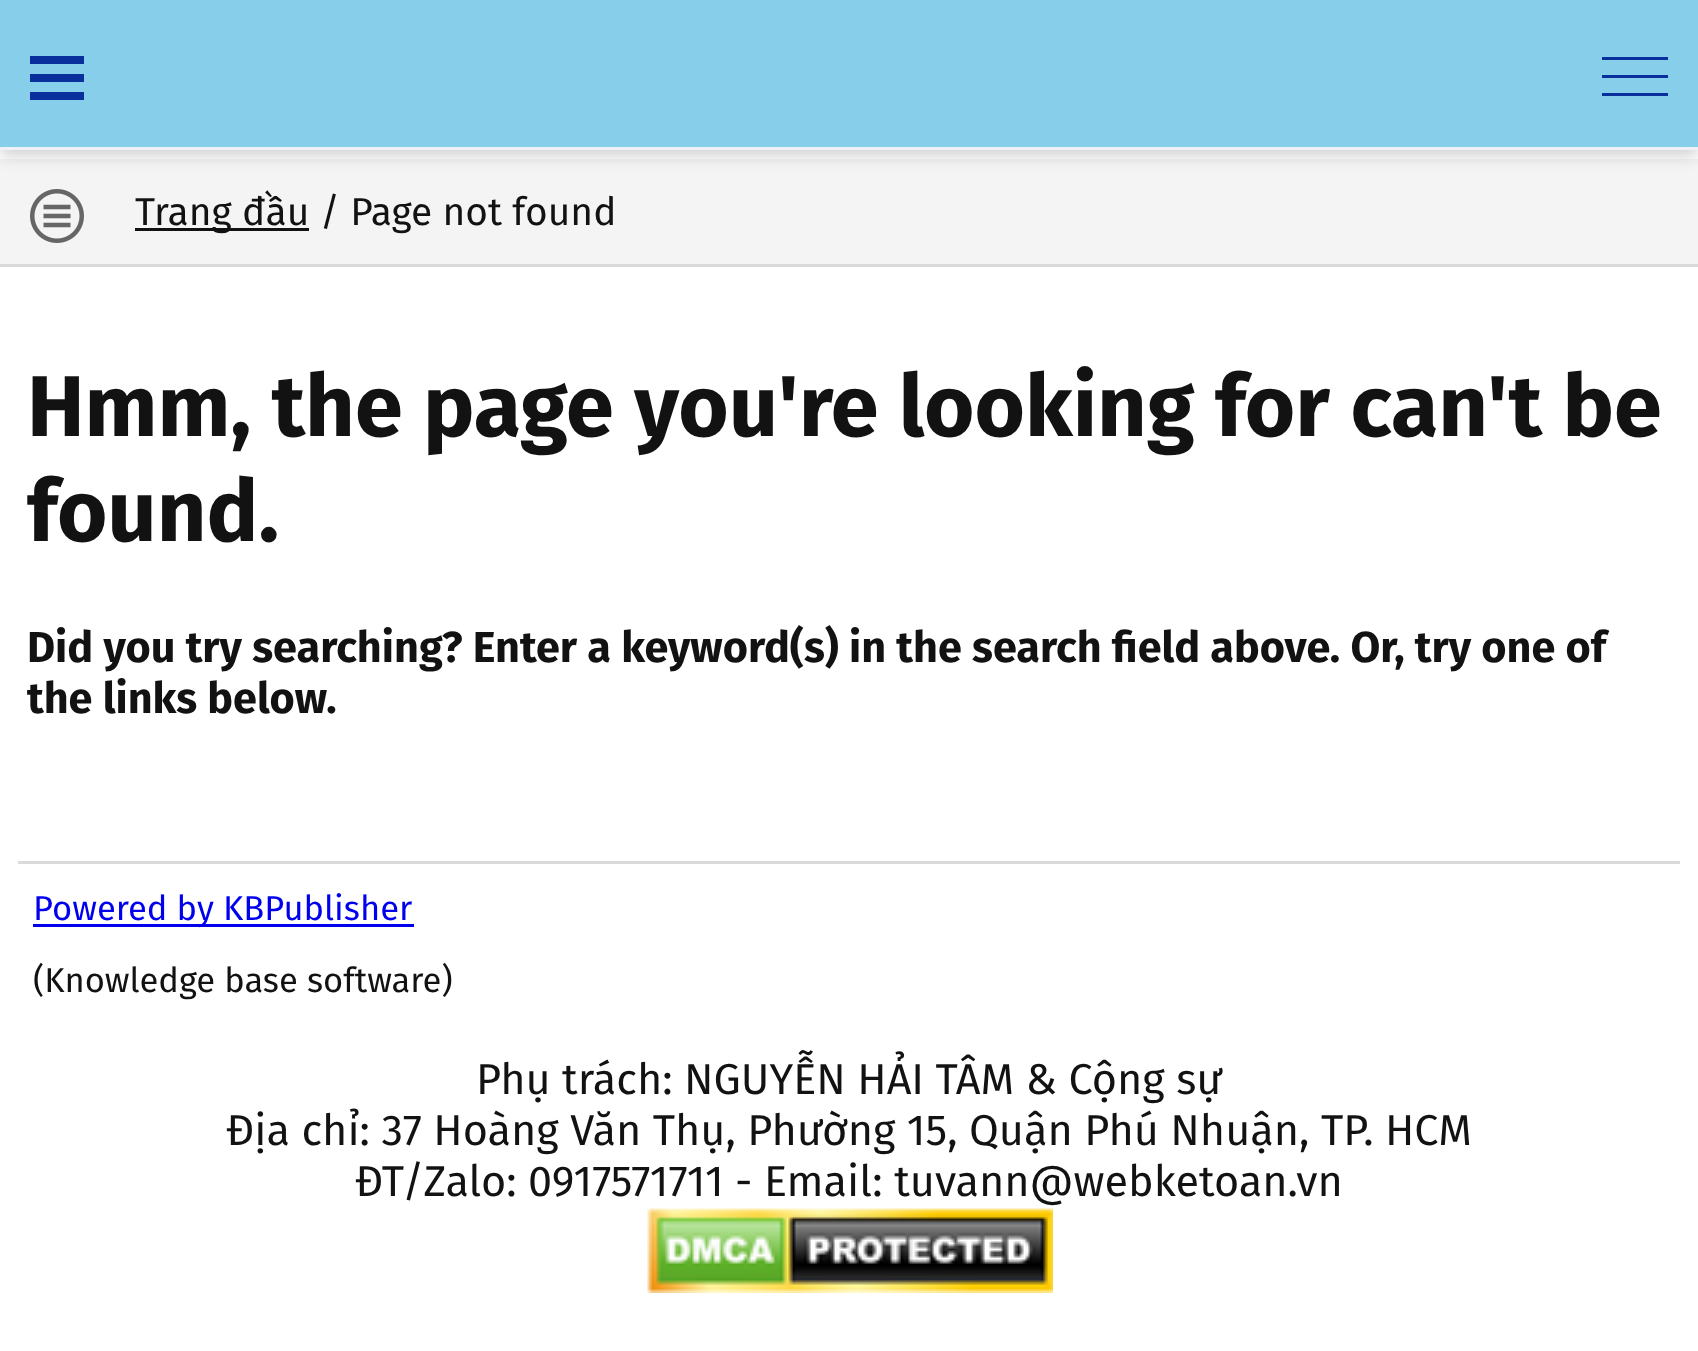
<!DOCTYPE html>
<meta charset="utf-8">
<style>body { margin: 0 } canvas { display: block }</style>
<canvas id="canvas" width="1698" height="1351"></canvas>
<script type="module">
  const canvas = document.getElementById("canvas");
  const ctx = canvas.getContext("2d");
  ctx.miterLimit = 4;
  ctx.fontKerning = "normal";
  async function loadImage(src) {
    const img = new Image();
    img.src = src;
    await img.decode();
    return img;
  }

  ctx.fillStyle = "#ffffff";
  ctx.fillRect(0, 0, 1698, 1351);
  ctx.fillStyle = "#f4f4f4";
  ctx.fillRect(0, 159, 1698, 105);
  ctx.fillStyle = "rgba(0, 0, 0, 0.18)";
  ctx.filter = "blur(7.5px)";
  ctx.beginPath();
  ctx.rect(0, 6, 1698, 150);
  ctx.fill();
  ctx.filter = "none";
  ctx.fillStyle = "#87ceeb";
  ctx.fillRect(0, 0, 1698, 147);
  ctx.fillStyle = "#eef1f5";
  ctx.fillRect(0, 147, 1698, 3);
  ctx.fillStyle = "#082f9c";
  ctx.beginPath();
  ctx.moveTo(84, 64);
  ctx.lineTo(30, 64);
  ctx.lineTo(30, 56);
  ctx.lineTo(84, 56);
  ctx.closePath();
  ctx.moveTo(84, 74);
  ctx.lineTo(30, 74);
  ctx.lineTo(30, 82);
  ctx.lineTo(84, 82);
  ctx.closePath();
  ctx.moveTo(84, 92);
  ctx.lineTo(30, 92);
  ctx.lineTo(30, 100);
  ctx.lineTo(84, 100);
  ctx.closePath();
  ctx.fill();
  ctx.save();
  ctx.beginPath();
  ctx.rect(1602, 39, 66, 66);
  ctx.clip();
  ctx.beginPath();
  ctx.moveTo(1674, 96);
  ctx.lineTo(1602, 96);
  ctx.lineTo(1602, 93);
  ctx.lineTo(1674, 93);
  ctx.closePath();
  ctx.moveTo(1674, 78);
  ctx.lineTo(1602, 78);
  ctx.lineTo(1602, 75);
  ctx.lineTo(1674, 75);
  ctx.closePath();
  ctx.moveTo(1674, 60);
  ctx.lineTo(1602, 60);
  ctx.lineTo(1602, 57);
  ctx.lineTo(1674, 57);
  ctx.closePath();
  ctx.fill("evenodd");
  ctx.restore();
  ctx.fillStyle = "#dadada";
  ctx.fillRect(0, 264, 1698, 3);
  ctx.drawImage(await loadImage("img1.png"), 30, 189, 54, 54);
  ctx.fillStyle = "#121212";
  ctx.fillRect(135, 228, 174, 3);
  ctx.font = "38.9px Fira Sans";
  ctx.fillText("Trang đầu / Page not found", 135, 225);
  ctx.font = "bold 86.4px Fira Sans";
  ctx.fillText("Hmm, the page you're looking for can't be", 27, 436);
  ctx.fillText("found.", 27, 541);
  ctx.font = "bold 43.2px Fira Sans";
  ctx.fillText("Did you try searching? Enter a keyword(s) in the search field above. Or, try one of", 27, 662);
  ctx.fillText("the links below.", 27, 713);
  ctx.fillStyle = "#dadada";
  ctx.fillRect(18, 861, 1662, 3);
  ctx.fillStyle = "#0000ee";
  ctx.fillRect(33, 924, 381, 3);
  ctx.font = "34.5px Fira Sans";
  ctx.fillText("Powered by KBPublisher", 33, 920);
  ctx.fillStyle = "#121212";
  ctx.fillText("(Knowledge base software)", 33, 992);
  ctx.font = "43.2px Fira Sans";
  ctx.fillText("Phụ trách: NGUYỄN HẢI TÂM & Cộng sự", 476, 1094);
  ctx.fillText("Địa chỉ: 37 Hoàng Văn Thụ, Phường 15, Quận Phú Nhuận, TP. HCM", 226, 1145);
  ctx.fillText("ĐT/Zalo: 0917571711 - Email: tuvann@webketoan.vn", 355, 1196);
  ctx.drawImage(await loadImage("img2.png"), 647, 1208, 406, 85);
</script>
